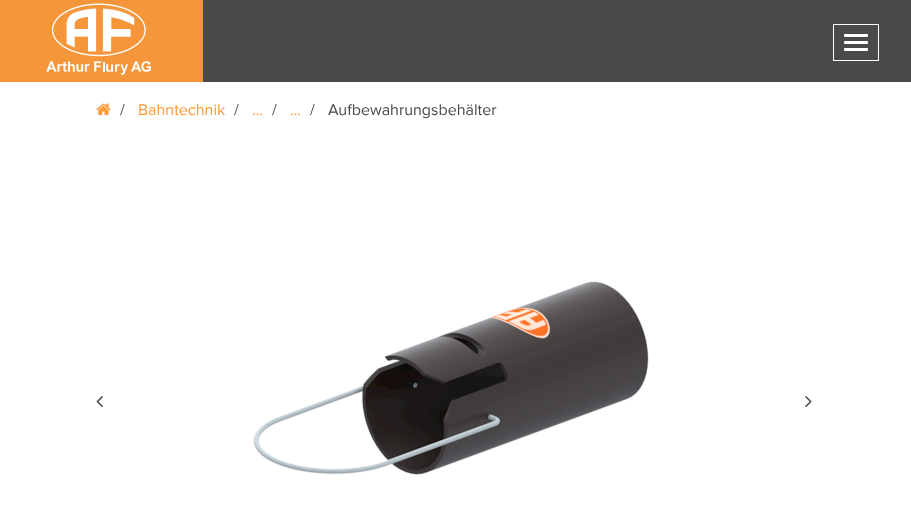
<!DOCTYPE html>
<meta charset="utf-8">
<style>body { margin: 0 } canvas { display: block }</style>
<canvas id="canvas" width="911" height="505"></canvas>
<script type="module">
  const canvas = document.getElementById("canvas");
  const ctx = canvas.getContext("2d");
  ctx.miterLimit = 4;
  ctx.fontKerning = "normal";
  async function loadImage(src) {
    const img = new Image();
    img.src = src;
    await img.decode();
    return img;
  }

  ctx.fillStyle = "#ffffff";
  ctx.fillRect(0, 0, 911, 505);
  ctx.fillStyle = "#4a4a4a";
  ctx.fillRect(203, 0, 708, 82);
  ctx.drawImage(await loadImage("img1.png"), 0, 0, 203, 82);
  ctx.strokeStyle = "#ffffff";
  ctx.strokeRect(833.5, 24.5, 45, 36);
  ctx.fillStyle = "#ffffff";
  ctx.beginPath();
  ctx.roundRect(844, 34, 24, 3, 1);
  ctx.fill();
  ctx.beginPath();
  ctx.roundRect(844, 41, 24, 3, 1);
  ctx.fill();
  ctx.beginPath();
  ctx.roundRect(844, 48, 24, 3, 1);
  ctx.fill();
  ctx.drawImage(await loadImage("img2.png"), 96, 103, 15, 12);
  ctx.font = "16px Proxima Nova";
  ctx.fillStyle = "#4a4a4a";
  ctx.fillText("/", 120, 115);
  ctx.fillStyle = "#ff9933";
  ctx.fillText("Bahntechnik", 138, 115);
  ctx.fillStyle = "#4a4a4a";
  ctx.fillText("/", 234, 115);
  ctx.fillStyle = "#ff9933";
  ctx.fillText("...", 252, 115);
  ctx.fillStyle = "#4a4a4a";
  ctx.fillText("/", 272, 115);
  ctx.fillStyle = "#ff9933";
  ctx.fillText("...", 290, 115);
  ctx.fillStyle = "#4a4a4a";
  ctx.fillText("/", 310, 115);
  ctx.fillText("Aufbewahrungsbehälter", 328, 115);
  ctx.drawImage(await loadImage("img3.png"), 96, 396, 7, 12);
  ctx.drawImage(await loadImage("img4.png"), 253, 281, 396, 194);
  ctx.drawImage(await loadImage("img5.png"), 805, 396, 7, 12);
</script>
